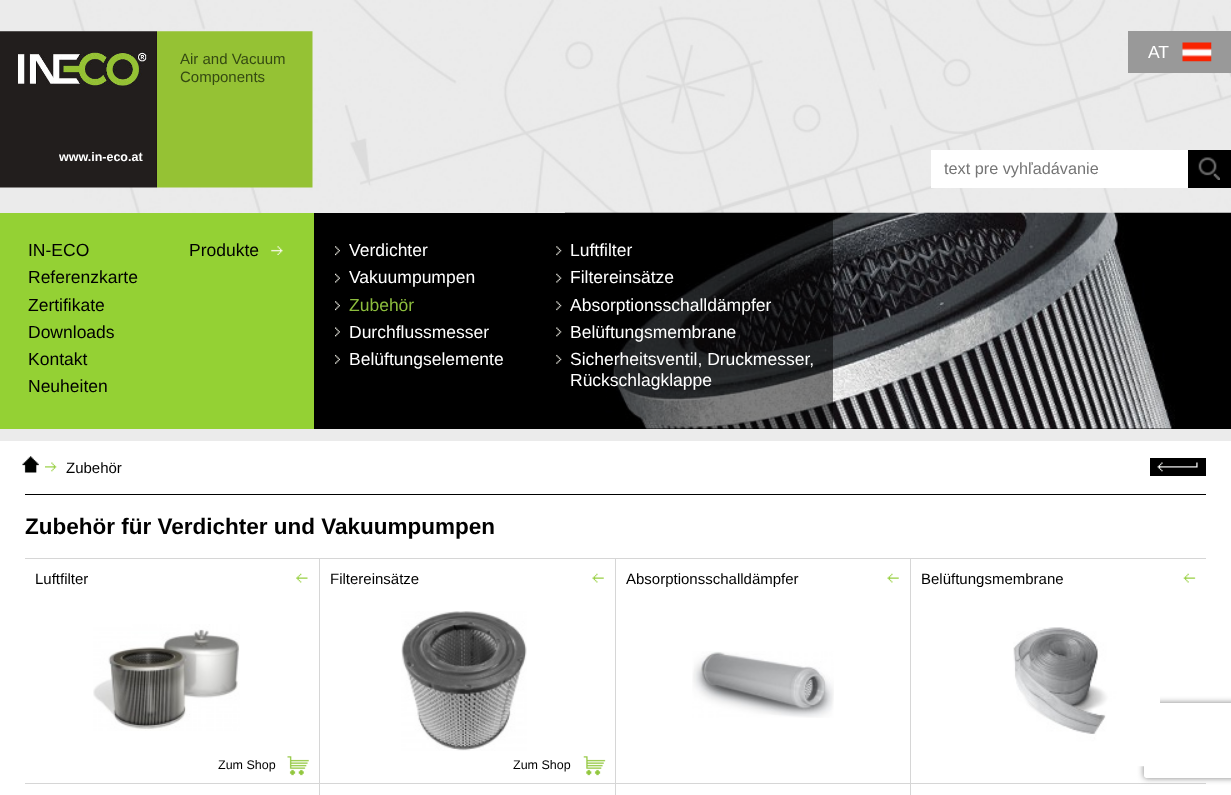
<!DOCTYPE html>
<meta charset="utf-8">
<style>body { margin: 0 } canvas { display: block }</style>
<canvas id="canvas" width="1231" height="795"></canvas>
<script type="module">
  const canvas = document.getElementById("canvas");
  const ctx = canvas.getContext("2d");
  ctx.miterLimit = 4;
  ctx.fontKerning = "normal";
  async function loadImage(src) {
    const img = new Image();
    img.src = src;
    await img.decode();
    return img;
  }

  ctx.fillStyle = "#ebebeb";
  ctx.fillRect(0, 0, 1231, 795);
  ctx.drawImage(await loadImage("img1.png"), 72, 0, 1159, 213);
  ctx.drawImage(await loadImage("img2.png"), 0, 31, 313, 157);
  ctx.font = "15px Liberation Sans";
  ctx.fillStyle = "#354a12";
  ctx.fillText("Air and Vacuum", 180, 64);
  ctx.fillText("Components", 180, 82);
  ctx.font = "bold 12.5px Liberation Sans";
  ctx.fillStyle = "#ffffff";
  ctx.fillText("www.in-eco.at", 59, 161);
  ctx.fillStyle = "#999999";
  ctx.fillRect(1128, 31, 103, 42);
  ctx.font = "17.5px Liberation Sans";
  ctx.fillStyle = "#ffffff";
  ctx.fillText("AT", 1148, 58);
  ctx.drawImage(await loadImage("img3.png"), 1182, 42, 30, 20);
  ctx.fillRect(931, 150, 257, 38);
  ctx.font = "16.25px Liberation Sans";
  ctx.fillStyle = "#757575";
  ctx.fillText("text pre vyhľadávanie", 944, 174);
  ctx.fillStyle = "#000000";
  ctx.fillRect(1188, 150, 43, 38);
  ctx.drawImage(await loadImage("img4.png"), 1198, 157, 22, 23);
  ctx.fillRect(314, 213, 917, 216);
  ctx.fillStyle = "#94d134";
  ctx.fillRect(0, 213, 314, 216);
  ctx.font = "17.5px Liberation Sans";
  ctx.fillStyle = "#000000";
  ctx.fillText("IN-ECO", 28, 256);
  ctx.fillText("Referenzkarte", 28, 283);
  ctx.fillText("Zertifikate", 28, 311);
  ctx.fillText("Downloads", 28, 338);
  ctx.fillText("Kontakt", 28, 365);
  ctx.fillText("Neuheiten", 28, 392);
  ctx.fillText("Produkte", 189, 256);
  ctx.drawImage(await loadImage("img5.png"), 271, 246, 12, 9);
  ctx.drawImage(await loadImage("img6.png"), 335, 246, 5, 10);
  ctx.fillStyle = "#ffffff";
  ctx.fillText("Verdichter", 349, 256);
  ctx.drawImage(await loadImage("img6.png"), 335, 301, 5, 10);
  ctx.fillStyle = "#8cbd3d";
  ctx.fillText("Zubehör", 349, 311);
  ctx.drawImage(await loadImage("img14.png"), 565, 212, 666, 217);
  ctx.fillStyle = "rgba(0, 0, 0, 0.5)";
  ctx.fillRect(612, 219, 221, 210);
  ctx.drawImage(await loadImage("img7.png"), 556, 246, 6, 10);
  ctx.fillStyle = "#ffffff";
  ctx.fillText("Luftfilter", 570, 256);
  ctx.drawImage(await loadImage("img8.png"), 556, 273, 6, 10);
  ctx.fillText("Filtereinsätze", 570, 283);
  ctx.drawImage(await loadImage("img7.png"), 556, 301, 6, 10);
  ctx.fillText("Absorptionsschalldämpfer", 570, 311);
  ctx.drawImage(await loadImage("img9.png"), 556, 327, 6, 10);
  ctx.fillText("Belüftungsmembrane", 570, 338);
  ctx.drawImage(await loadImage("img10.png"), 556, 354, 6, 10);
  ctx.fillText("Sicherheitsventil, Druckmesser,", 570, 365);
  ctx.fillText("Rückschlagklappe", 570, 386);
  ctx.drawImage(await loadImage("img11.png"), 335, 273, 5, 10);
  ctx.fillText("Vakuumpumpen", 349, 283);
  ctx.drawImage(await loadImage("img12.png"), 335, 327, 5, 10);
  ctx.fillText("Durchflussmesser", 349, 338);
  ctx.drawImage(await loadImage("img13.png"), 335, 354, 5, 10);
  ctx.fillText("Belüftungselemente", 349, 365);
  ctx.fillRect(0, 441, 1231, 354);
  ctx.fillStyle = "#000000";
  ctx.fillRect(25, 494, 1181, 1);
  ctx.drawImage(await loadImage("img15.png"), 22, 456, 17, 17);
  ctx.drawImage(await loadImage("img16.png"), 45, 462, 12, 10);
  ctx.font = "15px Liberation Sans";
  ctx.fillText("Zubehör", 66, 473);
  ctx.fillRect(1150, 458, 56, 18);
  ctx.drawImage(await loadImage("img17.png"), 1157, 462, 41, 10);
  ctx.font = "bold 22.5px Liberation Sans";
  ctx.fillText("Zubehör für Verdichter und Vakuumpumpen", 25, 534);
  ctx.fillStyle = "#d6d6d6";
  ctx.fillRect(319, 558, 1, 237);
  ctx.fillRect(615, 558, 1, 237);
  ctx.fillRect(910, 558, 1, 237);
  ctx.fillRect(25, 558, 1181, 1);
  ctx.font = "15px Liberation Sans";
  ctx.fillStyle = "#000000";
  ctx.fillText("Luftfilter", 35, 584);
  ctx.drawImage(await loadImage("img18.png"), 296, 573, 12, 10);
  ctx.drawImage(await loadImage("img19.png"), 93, 624, 147, 107);
  ctx.font = "12.5px Liberation Sans";
  ctx.fillText("Zum Shop", 218, 769);
  ctx.drawImage(await loadImage("img20.png"), 287, 756, 22, 20);
  ctx.font = "15px Liberation Sans";
  ctx.fillText("Filtereinsätze", 330, 584);
  ctx.drawImage(await loadImage("img21.png"), 592, 573, 12, 10);
  ctx.drawImage(await loadImage("img22.png"), 401, 611, 126, 140);
  ctx.font = "12.5px Liberation Sans";
  ctx.fillText("Zum Shop", 513, 769);
  ctx.drawImage(await loadImage("img23.png"), 583, 756, 23, 20);
  ctx.font = "15px Liberation Sans";
  ctx.fillText("Absorptionsschalldämpfer", 626, 584);
  ctx.drawImage(await loadImage("img21.png"), 887, 573, 12, 10);
  ctx.drawImage(await loadImage("img24.png"), 692, 651, 142, 67);
  ctx.fillText("Belüftungsmembrane", 921, 584);
  ctx.drawImage(await loadImage("img25.png"), 1183, 573, 13, 10);
  ctx.fillStyle = "#d6d6d6";
  ctx.fillRect(25, 783, 1181, 1);
  ctx.save();
  ctx.beginPath();
  ctx.moveTo(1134, 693);
  ctx.lineTo(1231, 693);
  ctx.lineTo(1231, 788);
  ctx.lineTo(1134, 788);
  ctx.closePath();
  ctx.moveTo(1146.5, 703);
  ctx.lineTo(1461.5, 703);
  ctx.bezierCurveTo(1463, 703, 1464, 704, 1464, 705.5);
  ctx.lineTo(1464, 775.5);
  ctx.bezierCurveTo(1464, 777, 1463, 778, 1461.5, 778);
  ctx.lineTo(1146.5, 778);
  ctx.bezierCurveTo(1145, 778, 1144, 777, 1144, 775.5);
  ctx.lineTo(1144, 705.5);
  ctx.bezierCurveTo(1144, 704, 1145, 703, 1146.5, 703);
  ctx.closePath();
  ctx.clip("evenodd");
  ctx.fillStyle = "#808080";
  ctx.filter = "blur(3px)";
  ctx.beginPath();
  ctx.roundRect(1144, 703, 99, 75, 2.5);
  ctx.fill();
  ctx.filter = "none";
  ctx.restore();
  ctx.drawImage(await loadImage("img26.png"), 1013, 627, 147, 140);
</script>
